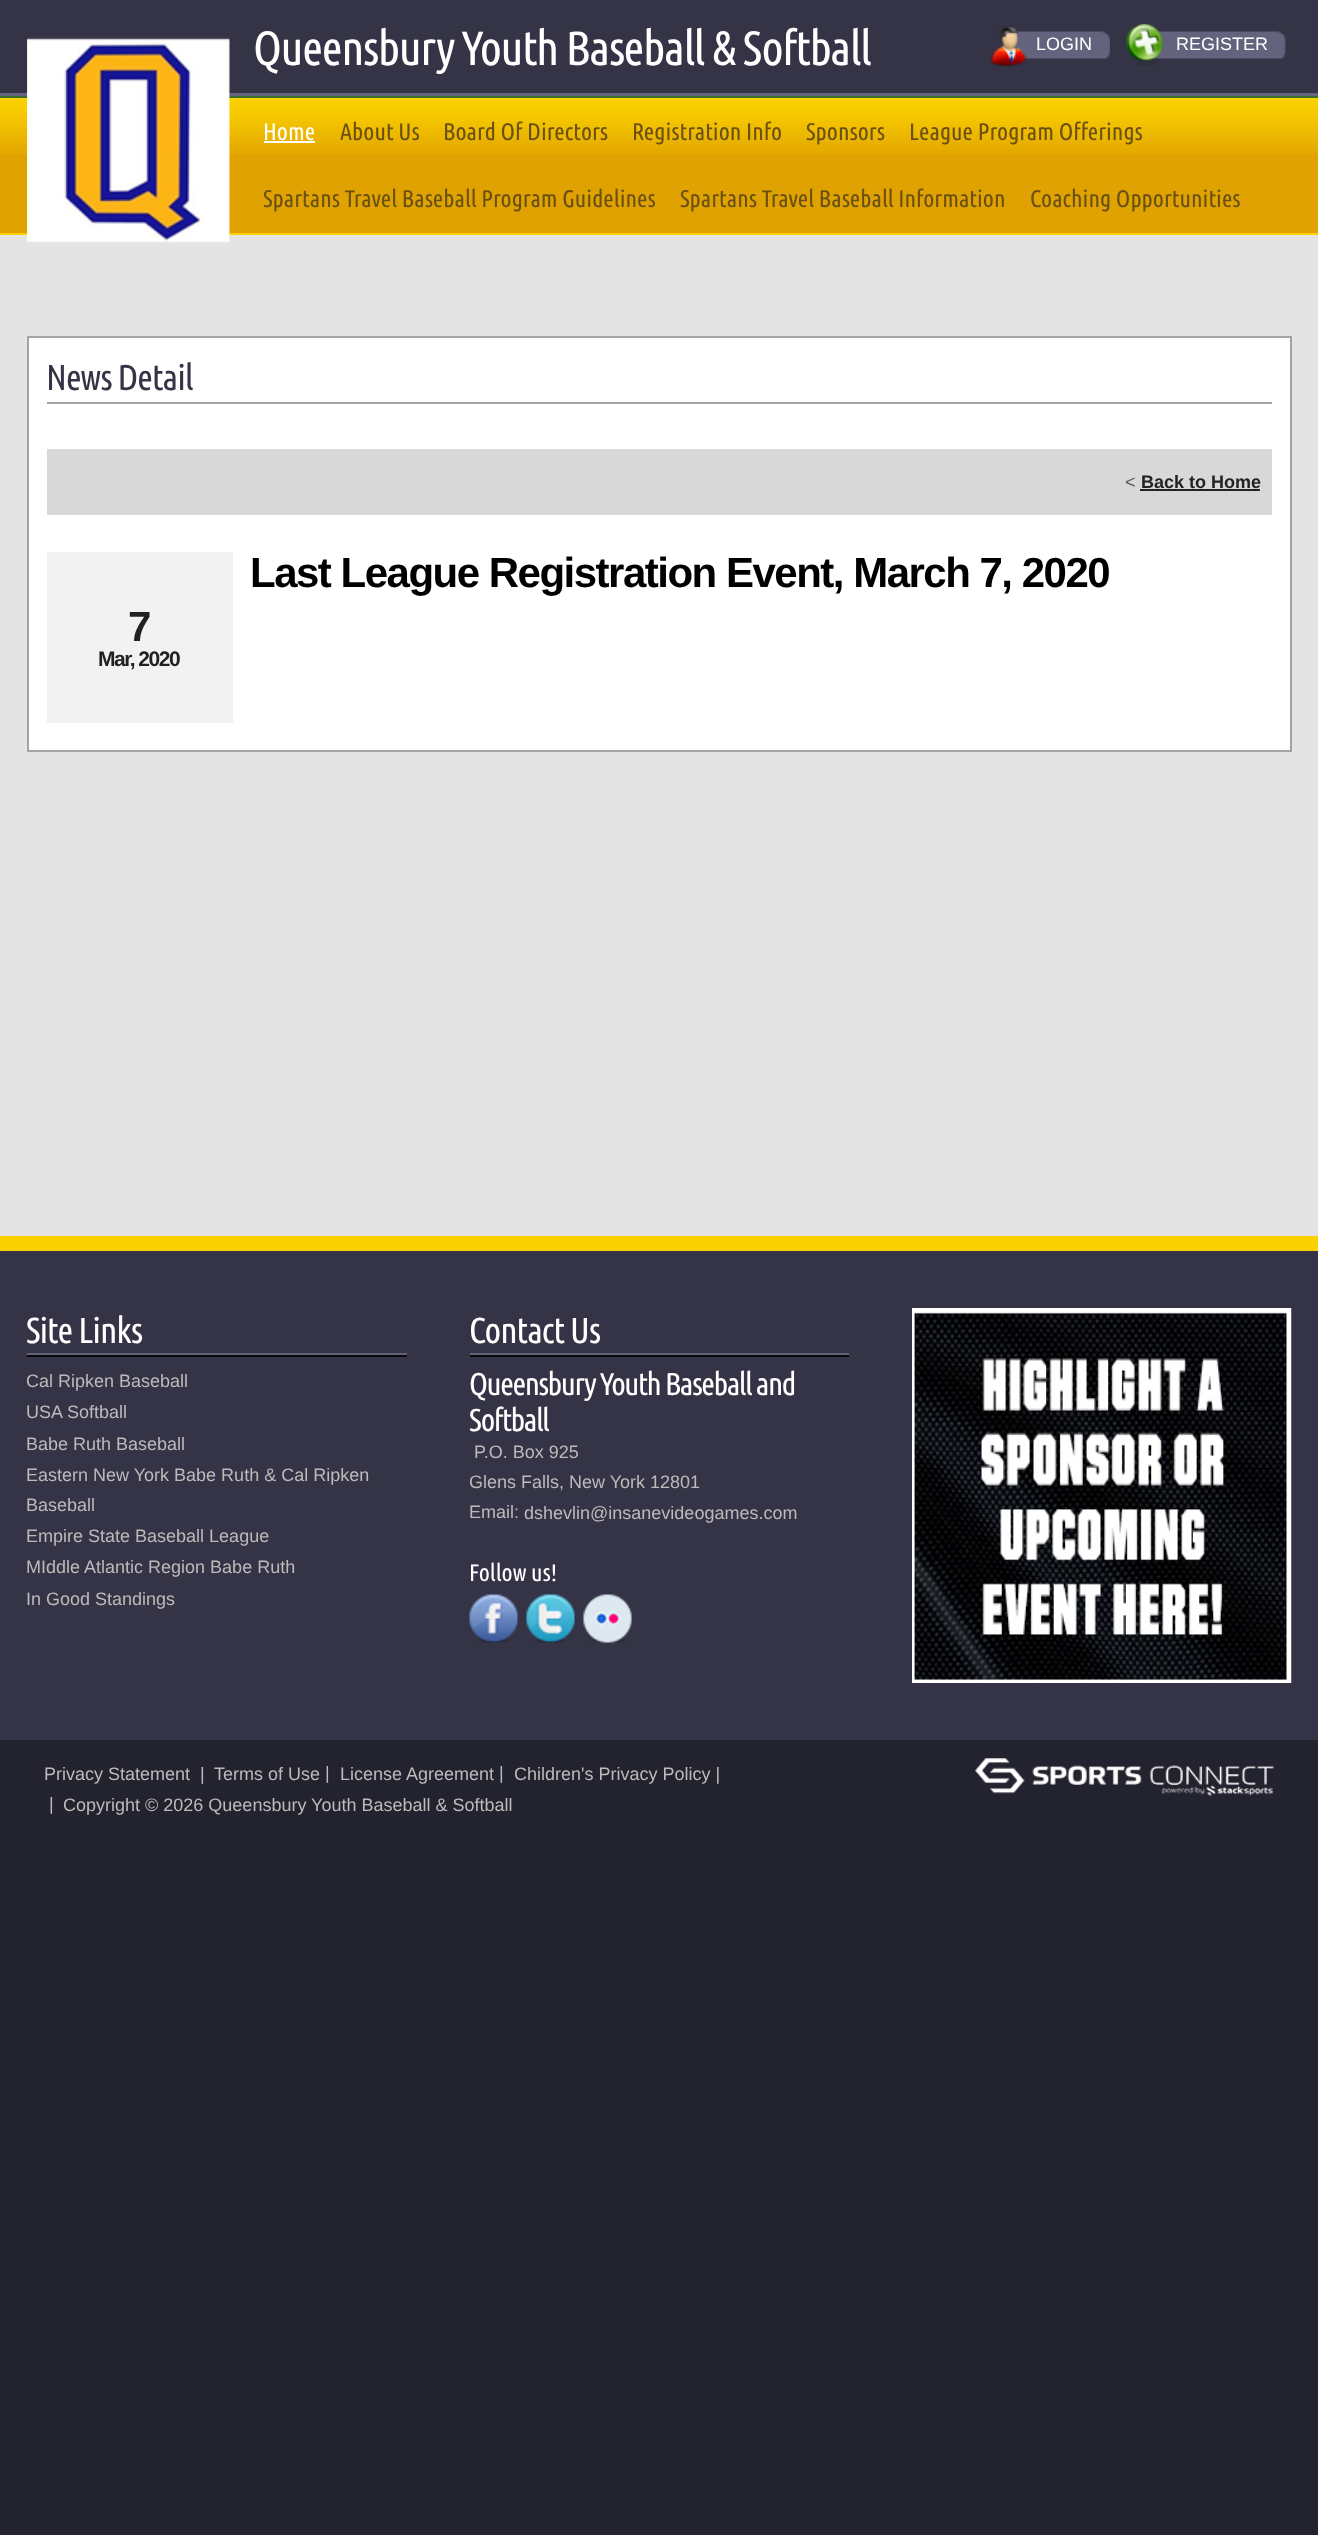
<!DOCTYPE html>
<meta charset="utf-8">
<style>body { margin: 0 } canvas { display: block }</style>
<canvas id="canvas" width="1318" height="2535"></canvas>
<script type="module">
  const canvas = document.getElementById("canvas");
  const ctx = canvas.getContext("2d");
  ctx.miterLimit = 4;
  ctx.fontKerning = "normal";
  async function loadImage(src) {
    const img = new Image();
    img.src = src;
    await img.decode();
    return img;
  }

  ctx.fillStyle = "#23232f";
  ctx.fillRect(0, 0, 1318, 2535);
  ctx.fillStyle = "#e4e4e4";
  ctx.fillRect(0, 235, 1318, 1001);
  ctx.fillStyle = "#343446";
  ctx.fillRect(0, 0, 1318, 93);
  ctx.fillStyle = "#63637d";
  ctx.fillRect(0, 93, 1318, 3);
  ctx.fillStyle = "#e0a200";
  ctx.fillRect(0, 155, 1318, 78);
  ctx.drawImage(await loadImage("img6.png"), 0, 98, 1318, 57);
  ctx.fillStyle = "#3c6e2b";
  ctx.fillRect(0, 96, 1318, 2);
  ctx.fillStyle = "#fbd200";
  ctx.fillRect(0, 233, 1318, 2);
  ctx.drawImage(await loadImage("img1.png"), 27, 37, 203, 206);
  ctx.letterSpacing = "-1.45px";
  ctx.font = "48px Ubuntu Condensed";
  ctx.fillStyle = "#ffffff";
  ctx.fillText("Queensbury Youth Baseball & Softball", 253, 65);
  ctx.drawImage(await loadImage("img3.png"), 1012, 31, 98, 28);
  ctx.drawImage(await loadImage("img2.png"), 990, 25, 37, 42);
  ctx.drawImage(await loadImage("img5.png"), 1149, 31, 137, 28);
  ctx.drawImage(await loadImage("img4.png"), 1126, 24, 37, 42);
  ctx.letterSpacing = "0px";
  ctx.font = "18px Liberation Sans";
  ctx.fillText("LOGIN", 1036, 50);
  ctx.fillText("REGISTER", 1176, 50);
  ctx.font = "24px Ubuntu Condensed";
  ctx.fillText("Home", 263, 140);
  ctx.fillRect(264, 141, 51, 2);
  ctx.fillStyle = "#6a5113";
  ctx.fillText("About Us", 340, 140);
  ctx.fillText("Board Of Directors", 443, 140);
  ctx.fillText("Registration Info", 632, 140);
  ctx.fillText("Sponsors", 806, 140);
  ctx.fillText("League Program Offerings", 909, 140);
  ctx.fillText("Spartans Travel Baseball Program Guidelines", 263, 207);
  ctx.fillText("Spartans Travel Baseball Information", 680, 207);
  ctx.fillText("Coaching Opportunities", 1030, 207);
  ctx.fillStyle = "#ffffff";
  ctx.beginPath();
  ctx.rect(28, 337, 1263, 414);
  ctx.fill();
  ctx.strokeStyle = "#a4a4a4";
  ctx.lineWidth = 2;
  ctx.stroke();
  ctx.letterSpacing = "-1px";
  ctx.font = "36px Ubuntu Condensed";
  ctx.fillStyle = "#343446";
  ctx.fillText("News Detail", 46, 390);
  ctx.fillStyle = "#a4a4a4";
  ctx.fillRect(47, 402, 1225, 2);
  ctx.fillStyle = "#d8d8d8";
  ctx.fillRect(47, 449, 1225, 66);
  ctx.letterSpacing = "0px";
  ctx.font = "18px Liberation Sans";
  ctx.fillStyle = "#5a5a5a";
  ctx.fillText("<", 1125, 488);
  ctx.font = "bold 18px Liberation Sans";
  ctx.fillStyle = "#222222";
  ctx.fillText("Back to Home", 1141, 488);
  ctx.fillRect(1140, 489, 120, 2);
  ctx.letterSpacing = "-1.5px";
  ctx.font = "bold 42px Liberation Sans";
  ctx.fillStyle = "#000000";
  ctx.fillText("Last League Registration Event, March 7, 2020", 250, 587);
  ctx.fillStyle = "#f2f2f2";
  ctx.fillRect(47, 552, 186, 171);
  ctx.fillStyle = "#222222";
  ctx.fillText("7", 128, 641);
  ctx.font = "bold 21px Liberation Sans";
  ctx.fillText("Mar, 2020", 98, 666);
  ctx.fillStyle = "#343446";
  ctx.fillRect(0, 1251, 1318, 489);
  ctx.fillStyle = "#fbd200";
  ctx.fillRect(0, 1236, 1318, 15);
  ctx.fillStyle = "#616179";
  ctx.fillRect(27, 1353, 380, 2);
  ctx.letterSpacing = "-1px";
  ctx.font = "36px Ubuntu Condensed";
  ctx.fillStyle = "#ffffff";
  ctx.fillText("Site Links", 26, 1343);
  ctx.fillStyle = "#09090c";
  ctx.fillRect(27, 1355, 380, 2);
  ctx.letterSpacing = "0px";
  ctx.font = "18px Liberation Sans";
  ctx.fillStyle = "#bbbbbb";
  ctx.fillText("Cal Ripken Baseball", 26, 1387);
  ctx.fillText("USA Softball", 26, 1418);
  ctx.fillText("Babe Ruth Baseball", 26, 1450);
  ctx.fillText("Eastern New York Babe Ruth & Cal Ripken", 26, 1481);
  ctx.fillText("Baseball", 26, 1511);
  ctx.fillText("Empire State Baseball League", 26, 1542);
  ctx.fillText("MIddle Atlantic Region Babe Ruth", 26, 1573);
  ctx.fillText("In Good Standings", 26, 1605);
  ctx.fillStyle = "#616179";
  ctx.fillRect(470, 1353, 379, 2);
  ctx.letterSpacing = "-1px";
  ctx.font = "36px Ubuntu Condensed";
  ctx.fillStyle = "#ffffff";
  ctx.fillText("Contact Us", 469, 1343);
  ctx.fillStyle = "#09090c";
  ctx.fillRect(470, 1355, 379, 2);
  ctx.letterSpacing = "-1.5px";
  ctx.font = "31.5px Ubuntu Condensed";
  ctx.fillStyle = "#ffffff";
  ctx.fillText("Queensbury Youth Baseball and", 469, 1395);
  ctx.fillText("Softball", 469, 1431);
  ctx.letterSpacing = "0px";
  ctx.font = "18px Liberation Sans";
  ctx.fillStyle = "#bbbbbb";
  ctx.fillText("P.O. Box 925", 474, 1458);
  ctx.fillText("Glens Falls, New York 12801", 469, 1488);
  ctx.fillText("Email:", 469, 1518);
  ctx.fillText("dshevlin@insanevideogames.com", 524, 1519);
  ctx.font = "24px Ubuntu Condensed";
  ctx.fillStyle = "#ffffff";
  ctx.fillText("Follow us!", 469, 1581);
  ctx.drawImage(await loadImage("img7.png"), 469, 1594, 49, 49);
  ctx.drawImage(await loadImage("img8.png"), 526, 1594, 49, 49);
  ctx.drawImage(await loadImage("img9.png"), 583, 1594, 49, 49);
  ctx.drawImage(await loadImage("img10.png"), 912, 1308, 380, 375);
  ctx.font = "18px Liberation Sans";
  ctx.fillStyle = "#bbbbbb";
  ctx.fillText("Privacy Statement", 44, 1780);
  ctx.fillText("|", 200, 1780);
  ctx.fillText("Terms of Use", 214, 1780);
  ctx.fillText("|", 325, 1779);
  ctx.fillText("License Agreement", 340, 1780);
  ctx.fillText("|", 499, 1779);
  ctx.fillText("Children's Privacy Policy |", 514, 1780);
  ctx.fillText("|", 49, 1810);
  ctx.fillText("Copyright © 2026 Queensbury Youth Baseball & Softball", 63, 1811);
  ctx.drawImage(await loadImage("img11.png"), 975, 1758, 299, 38);
</script>
